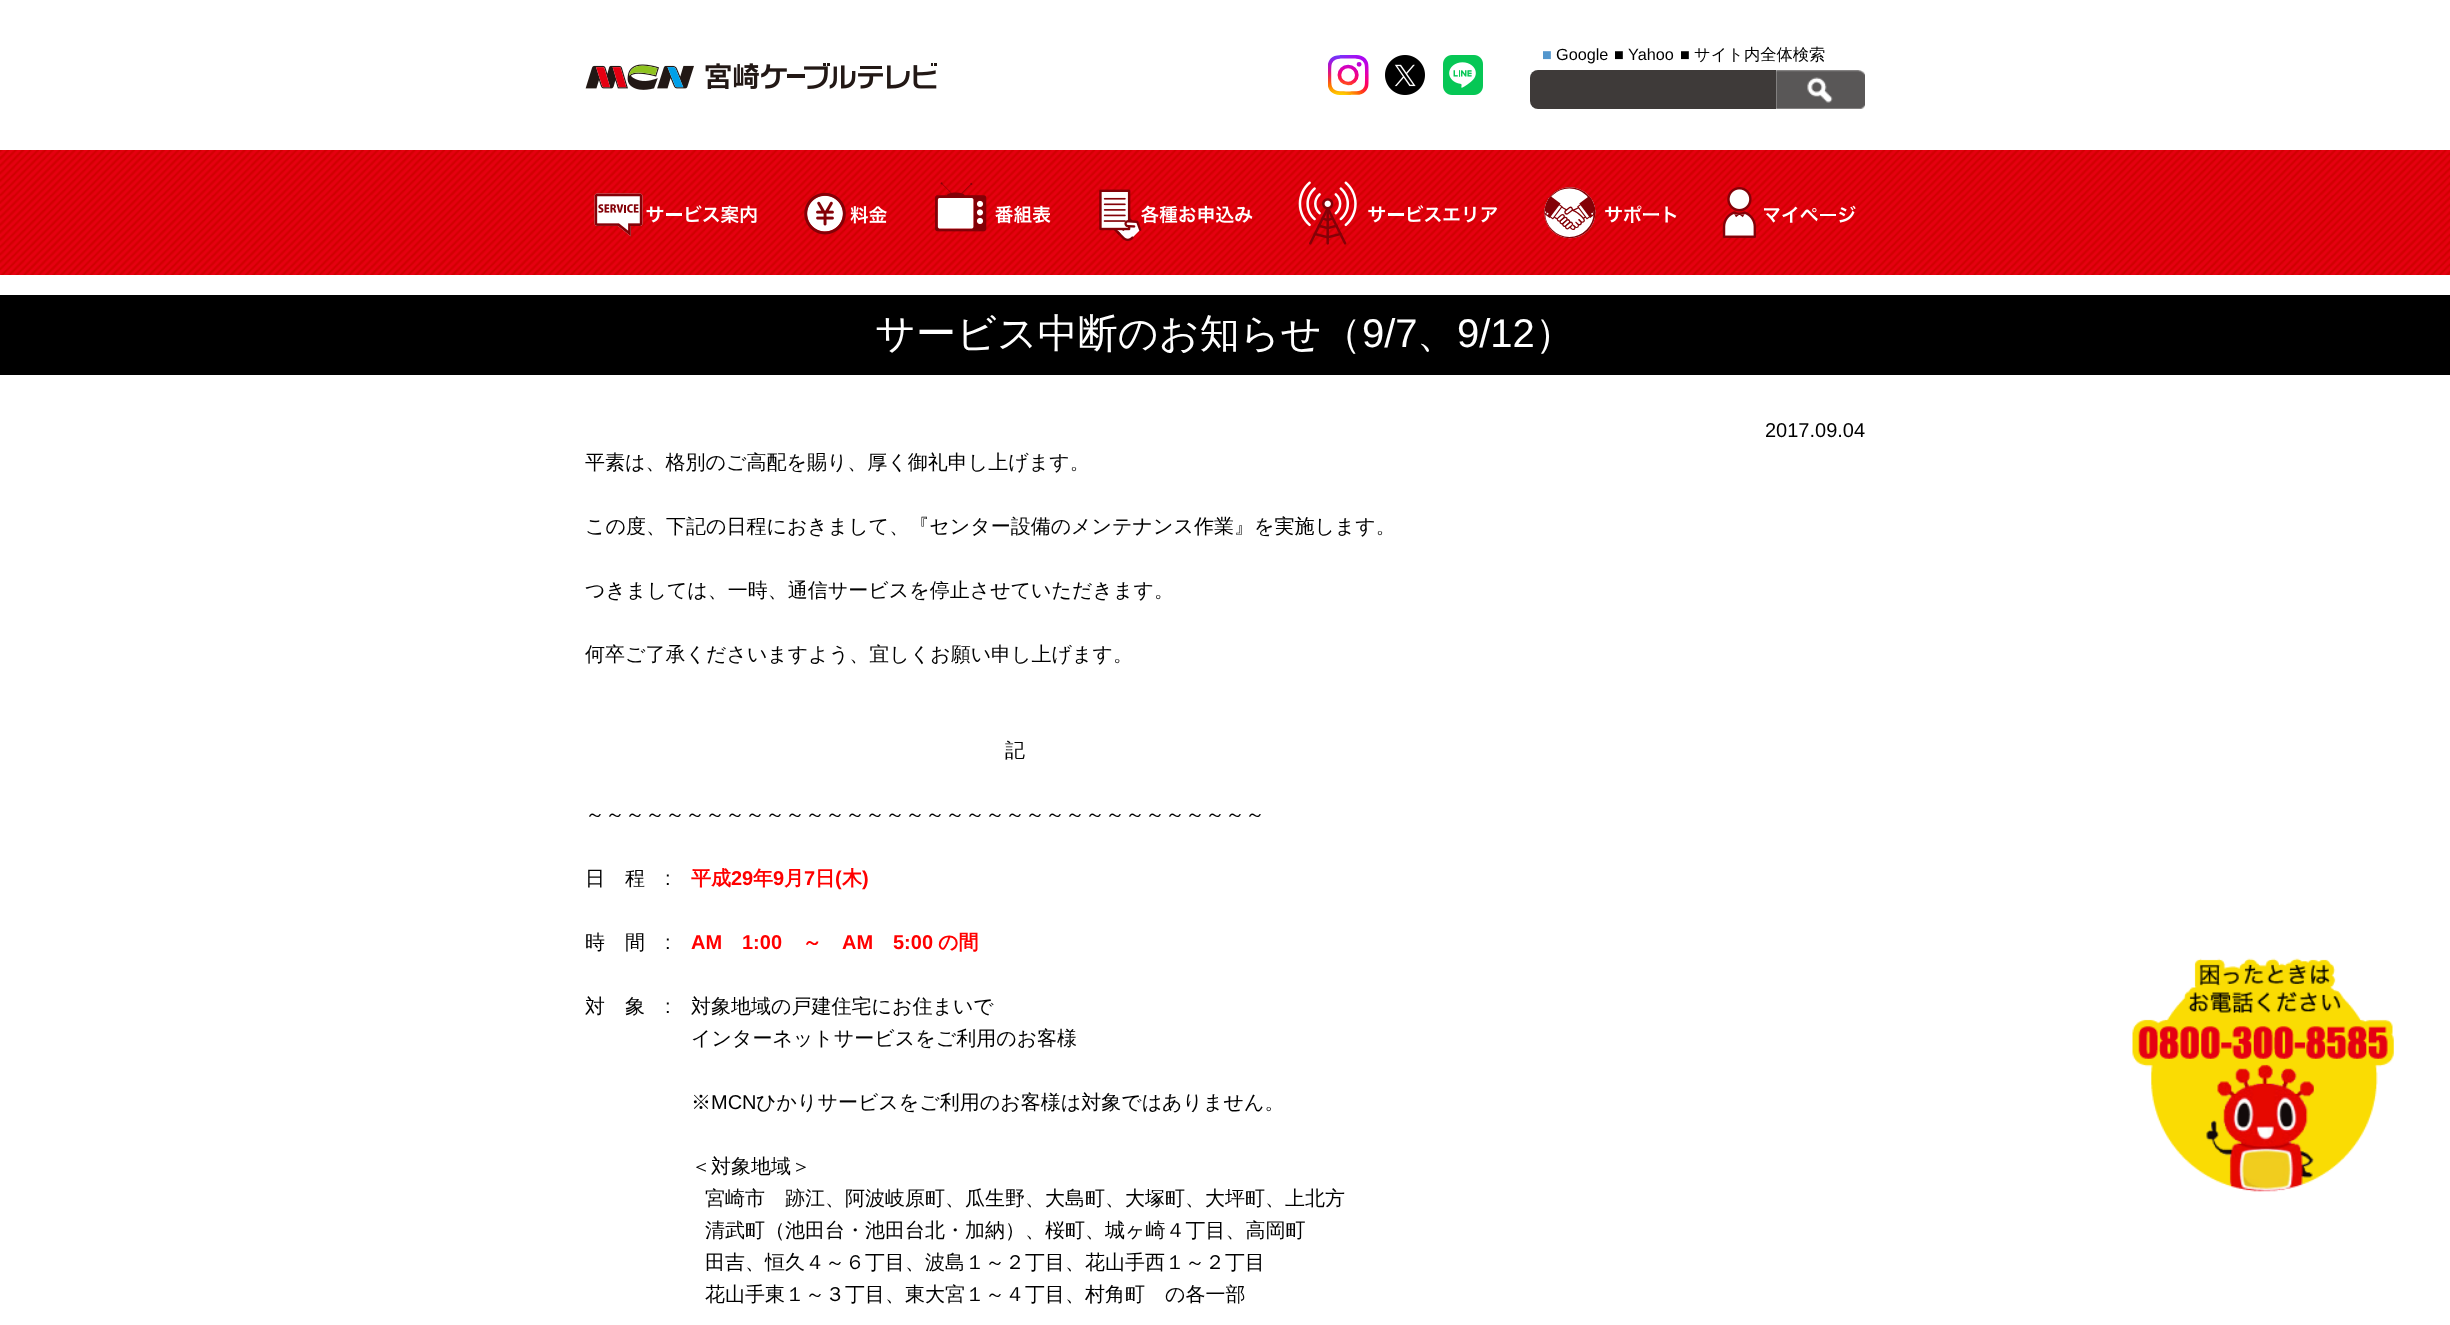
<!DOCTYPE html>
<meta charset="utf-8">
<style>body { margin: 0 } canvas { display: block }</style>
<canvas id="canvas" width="2450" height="1325"></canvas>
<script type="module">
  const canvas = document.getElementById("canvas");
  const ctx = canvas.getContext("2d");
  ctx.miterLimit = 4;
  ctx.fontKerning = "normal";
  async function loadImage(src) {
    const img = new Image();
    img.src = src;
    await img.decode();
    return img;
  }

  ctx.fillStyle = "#ffffff";
  ctx.fillRect(0, 0, 2450, 1325);
  ctx.drawImage(await loadImage("img1.png"), 1328, 55, 41, 40);
  ctx.drawImage(await loadImage("img2.png"), 1385, 55, 40, 40);
  ctx.drawImage(await loadImage("img3.png"), 1443, 55, 40, 40);
  ctx.font = "16.25px Liberation Sans";
  ctx.fillStyle = "#5396cd";
  ctx.fillText("■", 1542, 60);
  ctx.fillStyle = "#000000";
  ctx.fillText("Google", 1556, 60);
  ctx.fillText("■ Yahoo", 1614, 60);
  ctx.fillText("■", 1680, 60);
  ctx.font = "500 16.25px WenQuanYi Zen Hei";
  ctx.fillText("サイト内全体検索", 1694, 60);
  ctx.fillStyle = "#3e3a39";
  ctx.beginPath();
  ctx.roundRect(1530, 70, 246, 39, [8, 0, 0, 8]);
  ctx.fill();
  ctx.drawImage(await loadImage("img4.png"), 1776, 70, 89, 39);
  ctx.drawImage(await loadImage("img5.png"), 585, 63, 352, 27);
  ctx.drawImage(await loadImage("img6.png"), 0, 150, 2450, 125);
  ctx.drawImage(await loadImage("img7.png"), 594, 193, 163, 44);
  ctx.drawImage(await loadImage("img8.png"), 804, 192, 83, 43);
  ctx.drawImage(await loadImage("img9.png"), 935, 182, 116, 50);
  ctx.drawImage(await loadImage("img10.png"), 1099, 189, 154, 52);
  ctx.drawImage(await loadImage("img11.png"), 1298, 181, 200, 64);
  ctx.drawImage(await loadImage("img12.png"), 1544, 187, 133, 52);
  ctx.drawImage(await loadImage("img13.png"), 1722, 187, 134, 51);
  ctx.fillStyle = "#000000";
  ctx.fillRect(0, 295, 2450, 80);
  ctx.font = "500 40px WenQuanYi Zen Hei";
  ctx.fillStyle = "#ffffff";
  ctx.fillText("サービス中断のお知らせ（", 875, 347);
  ctx.font = "40px Liberation Sans";
  ctx.fillText("9/7", 1362, 347);
  ctx.font = "500 40px WenQuanYi Zen Hei";
  ctx.fillText("、", 1417, 347);
  ctx.font = "40px Liberation Sans";
  ctx.fillText("9/12", 1457, 347);
  ctx.font = "500 40px WenQuanYi Zen Hei";
  ctx.fillText("）", 1535, 347);
  ctx.font = "20px Liberation Sans";
  ctx.fillStyle = "#000000";
  ctx.fillText("2017.09.04", 1765, 437);
  ctx.font = "500 20px WenQuanYi Zen Hei";
  ctx.fillText("平素は、格別のご高配を賜り、厚く御礼申し上げます。", 585, 469);
  ctx.fillText("この度、下記の日程におきまして、『センター設備のメンテナンス作業』を実施します。", 585, 533);
  ctx.fillText("つきましては、一時、通信サービスを停止させていただきます。", 585, 597);
  ctx.fillText("何卒ご了承くださいますよう、宜しくお願い申し上げます。", 585, 661);
  ctx.fillText("記", 1005, 757);
  ctx.fillText("～～～～～～～～～～～～～～～～～～～～～～～～～～～～～～～～～～", 585, 821);
  ctx.fillText("日　程", 585, 885);
  ctx.font = "20px Liberation Sans";
  ctx.fillText(":", 665, 885);
  ctx.font = "bold 20px WenQuanYi Zen Hei";
  ctx.fillStyle = "#ff0000";
  ctx.fillText("平成", 691, 885);
  ctx.font = "bold 20px Liberation Sans";
  ctx.fillText("29", 731, 885);
  ctx.font = "bold 20px WenQuanYi Zen Hei";
  ctx.fillText("年", 753, 885);
  ctx.font = "bold 20px Liberation Sans";
  ctx.fillText("9", 773, 885);
  ctx.font = "bold 20px WenQuanYi Zen Hei";
  ctx.fillText("月", 784, 885);
  ctx.font = "bold 20px Liberation Sans";
  ctx.fillText("7", 804, 885);
  ctx.font = "bold 20px WenQuanYi Zen Hei";
  ctx.fillText("日", 815, 885);
  ctx.font = "bold 20px Liberation Sans";
  ctx.fillText("(", 835, 885);
  ctx.font = "bold 20px WenQuanYi Zen Hei";
  ctx.fillText("木", 842, 885);
  ctx.font = "bold 20px Liberation Sans";
  ctx.fillText(")", 862, 885);
  ctx.font = "500 20px WenQuanYi Zen Hei";
  ctx.fillStyle = "#000000";
  ctx.fillText("時　間", 585, 949);
  ctx.font = "20px Liberation Sans";
  ctx.fillText(":", 665, 949);
  ctx.font = "bold 20px Liberation Sans";
  ctx.fillStyle = "#ff0000";
  ctx.fillText("AM", 691, 949);
  ctx.fillText("1:00", 742, 949);
  ctx.font = "bold 20px WenQuanYi Zen Hei";
  ctx.fillText("～", 802, 949);
  ctx.font = "bold 20px Liberation Sans";
  ctx.fillText("AM", 842, 949);
  ctx.fillText("5:00", 893, 949);
  ctx.font = "bold 20px WenQuanYi Zen Hei";
  ctx.fillText("の間", 938, 949);
  ctx.font = "500 20px WenQuanYi Zen Hei";
  ctx.fillStyle = "#000000";
  ctx.fillText("対　象", 585, 1013);
  ctx.font = "20px Liberation Sans";
  ctx.fillText(":", 665, 1013);
  ctx.font = "500 20px WenQuanYi Zen Hei";
  ctx.fillText("対象地域の戸建住宅にお住まいで", 691, 1013);
  ctx.fillText("インターネットサービスをご利用のお客様", 691, 1045);
  ctx.fillText("※", 691, 1109);
  ctx.font = "20px Liberation Sans";
  ctx.fillText("MCN", 711, 1109);
  ctx.font = "500 20px WenQuanYi Zen Hei";
  ctx.fillText("ひかりサービスをご利用のお客様は対象ではありません。", 756, 1109);
  ctx.fillText("＜対象地域＞", 691, 1173);
  ctx.fillText("宮崎市　跡江、阿波岐原町、瓜生野、大島町、大塚町、大坪町、上北方", 705, 1205);
  ctx.fillText("清武町（池田台・池田台北・加納）、桜町、城ヶ崎４丁目、高岡町", 705, 1237);
  ctx.fillText("田吉、恒久４～６丁目、波島１～２丁目、花山手西１～２丁目", 705, 1269);
  ctx.fillText("花山手東１～３丁目、東大宮１～４丁目、村角町　の各一部", 705, 1301);
  ctx.drawImage(await loadImage("img14.png"), 2132, 958, 262, 234);
</script>
